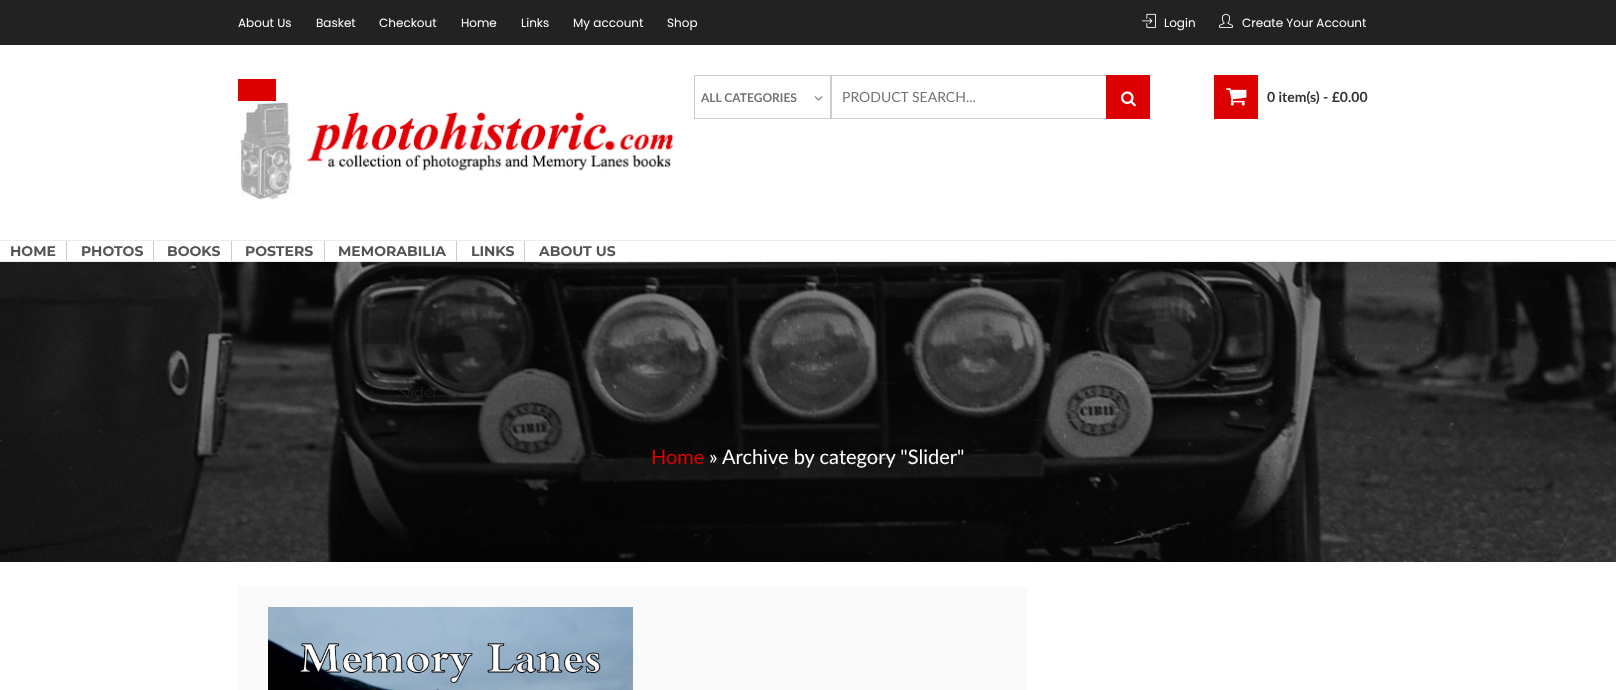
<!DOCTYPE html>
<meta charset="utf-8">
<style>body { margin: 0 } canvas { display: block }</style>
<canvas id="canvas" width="1616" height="690"></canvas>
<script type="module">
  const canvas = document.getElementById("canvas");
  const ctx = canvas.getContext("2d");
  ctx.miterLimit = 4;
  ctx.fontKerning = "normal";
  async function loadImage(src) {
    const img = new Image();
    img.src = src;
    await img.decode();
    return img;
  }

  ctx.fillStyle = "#ffffff";
  ctx.fillRect(0, 0, 1616, 690);
  ctx.fillStyle = "#222222";
  ctx.fillRect(0, 0, 1616, 45);
  ctx.font = "12px Poppins";
  ctx.fillStyle = "#ffffff";
  ctx.fillText("About Us", 238, 27);
  ctx.fillText("Basket", 316, 27);
  ctx.fillText("Checkout", 379, 27);
  ctx.fillText("Home", 461, 27);
  ctx.fillText("Links", 521, 27);
  ctx.fillText("My account", 573, 27);
  ctx.fillText("Shop", 667, 27);
  ctx.drawImage(await loadImage("img1.png"), 1142, 13, 14, 15);
  ctx.fillText("Login", 1164, 27);
  ctx.drawImage(await loadImage("img2.png"), 1219, 13, 14, 15);
  ctx.fillText("Create Your Account", 1242, 27);
  ctx.fillStyle = "#dd0000";
  ctx.fillRect(238, 79, 38, 22);
  ctx.drawImage(await loadImage("img3.png"), 238, 102, 436, 98);
  ctx.strokeStyle = "#cccccc";
  ctx.strokeRect(694.5, 75.5, 136, 43);
  ctx.font = "bold 12px Lato";
  ctx.fillStyle = "#737373";
  ctx.fillText("ALL CATEGORIES", 701, 102);
  ctx.drawImage(await loadImage("img4.png"), 814, 96, 9, 5);
  ctx.strokeRect(831.5, 75.5, 318, 43);
  ctx.font = "14px Lato";
  ctx.fillText("PRODUCT SEARCH...", 842, 102);
  ctx.fillStyle = "#dd0000";
  ctx.fillRect(1106, 75, 44, 44);
  ctx.drawImage(await loadImage("img5.png"), 1121, 91, 15, 16);
  ctx.fillRect(1214, 75, 44, 44);
  ctx.drawImage(await loadImage("img6.png"), 1226, 88, 21, 18);
  ctx.font = "bold 14px Lato";
  ctx.fillStyle = "#333333";
  ctx.fillText("0 item(s) - £0.00", 1267, 102);
  ctx.fillStyle = "#ececec";
  ctx.fillRect(0, 240, 1616, 1);
  ctx.fillRect(0, 261, 1616, 1);
  ctx.fillStyle = "#cccccc";
  ctx.fillRect(66, 241, 1, 20);
  ctx.font = "bold 14px Montserrat";
  ctx.fillStyle = "#555555";
  ctx.fillText("HOME", 10, 256);
  ctx.fillStyle = "#cccccc";
  ctx.fillRect(153, 241, 1, 20);
  ctx.fillStyle = "#555555";
  ctx.fillText("PHOTOS", 81, 256);
  ctx.fillStyle = "#cccccc";
  ctx.fillRect(231, 241, 1, 20);
  ctx.fillStyle = "#555555";
  ctx.fillText("BOOKS", 167, 256);
  ctx.fillStyle = "#cccccc";
  ctx.fillRect(324, 241, 1, 20);
  ctx.fillStyle = "#555555";
  ctx.fillText("POSTERS", 245, 256);
  ctx.fillStyle = "#cccccc";
  ctx.fillRect(456, 241, 1, 20);
  ctx.fillStyle = "#555555";
  ctx.fillText("MEMORABILIA", 338, 256);
  ctx.fillStyle = "#cccccc";
  ctx.fillRect(524, 241, 1, 20);
  ctx.fillStyle = "#555555";
  ctx.fillText("LINKS", 471, 256);
  ctx.fillText("ABOUT US", 539, 256);
  ctx.drawImage(await loadImage("img7.png"), 0, 262, 1616, 300);
  ctx.font = "14px Montserrat";
  ctx.fillStyle = "#212121";
  ctx.fillText("Slider", 398, 397);
  ctx.font = "20px Lato";
  ctx.fillStyle = "#dd0000";
  ctx.fillText("Home", 651, 464);
  ctx.fillStyle = "#ffffff";
  ctx.fillText("» Archive by category \"Slider\"", 709, 464);
  ctx.fillStyle = "#fafafa";
  ctx.fillRect(238, 587, 789, 103);
  ctx.drawImage(await loadImage("img8.png"), 268, 607, 365, 83);
</script>
